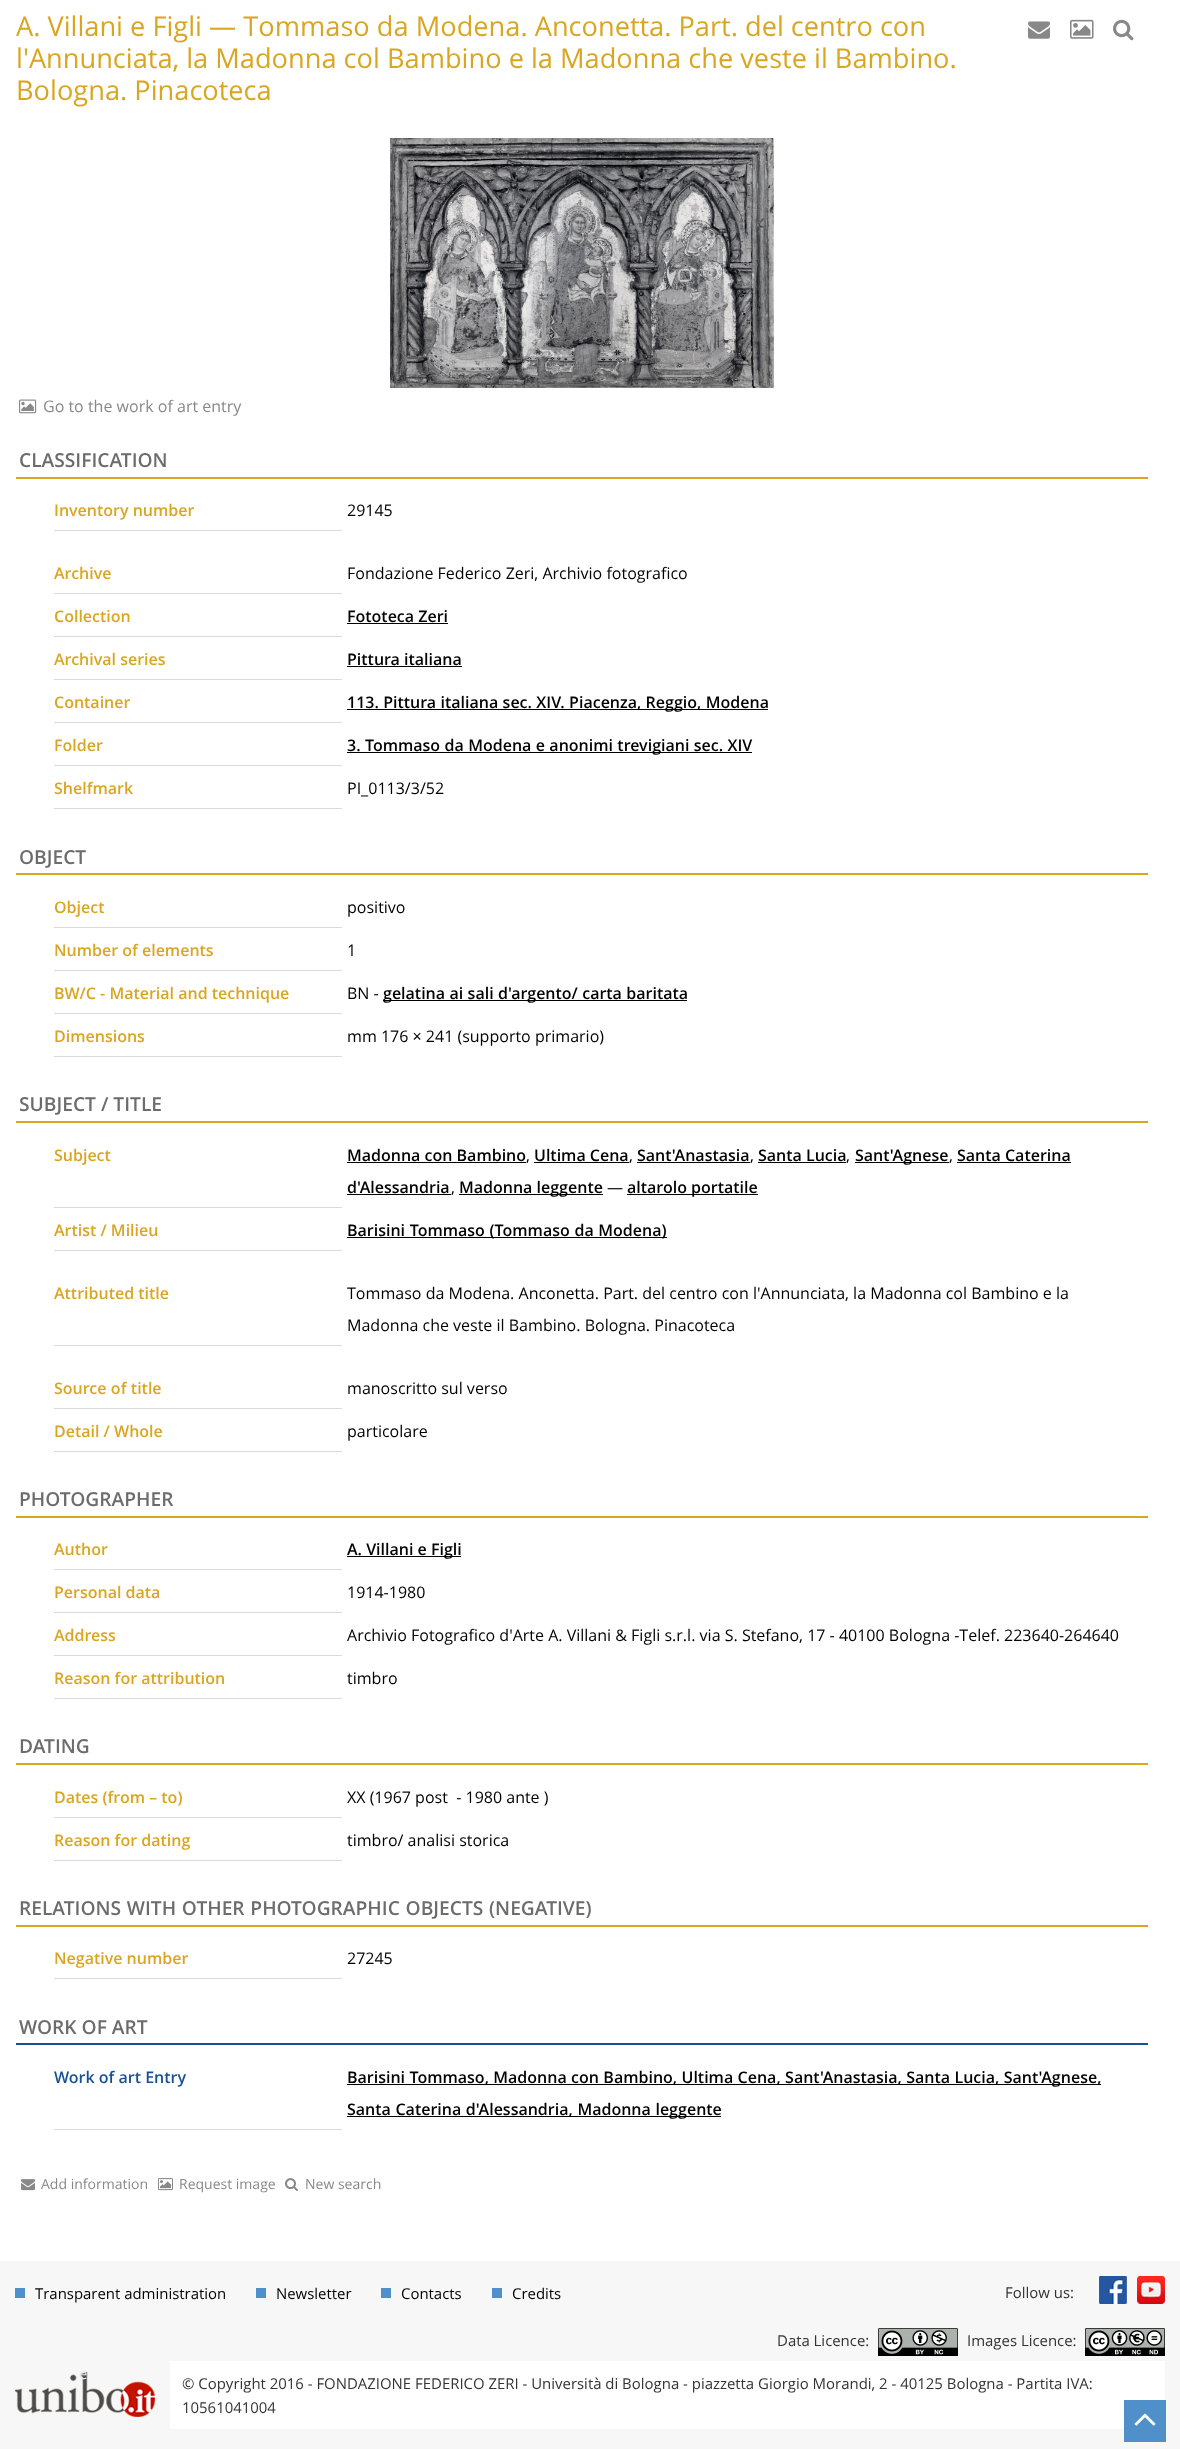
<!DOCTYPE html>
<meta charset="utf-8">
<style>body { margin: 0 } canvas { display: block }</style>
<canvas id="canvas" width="1180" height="2449"></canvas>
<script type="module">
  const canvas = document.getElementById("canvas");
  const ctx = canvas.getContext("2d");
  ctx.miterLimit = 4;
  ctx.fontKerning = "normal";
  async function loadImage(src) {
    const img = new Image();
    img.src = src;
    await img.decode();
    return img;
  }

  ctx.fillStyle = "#ffffff";
  ctx.fillRect(0, 0, 1180, 2449);
  ctx.font = "27.2px Open Sans";
  ctx.fillStyle = "#daa520";
  ctx.fillText("A. Villani e Figli — Tommaso da Modena. Anconetta. Part. del centro con", 16, 36);
  ctx.fillText("l'Annunciata, la Madonna col Bambino e la Madonna che veste il Bambino.", 16, 68);
  ctx.fillText("Bologna. Pinacoteca", 16, 100);
  ctx.drawImage(await loadImage("img1.png"), 1028, 21, 22, 18);
  ctx.drawImage(await loadImage("img2.png"), 1070, 19, 24, 20);
  ctx.drawImage(await loadImage("img3.png"), 1113, 19, 21, 22);
  ctx.drawImage(await loadImage("img4.png"), 390, 138, 384, 250);
  ctx.drawImage(await loadImage("img5.png"), 19, 399, 18, 15);
  ctx.font = "16px Open Sans";
  ctx.fillStyle = "#888888";
  ctx.fillText("Go to the work of art entry", 43, 412);
  ctx.fillStyle = "#daa520";
  ctx.fillRect(16, 477, 1132, 2);
  ctx.font = "600 19.2px Open Sans";
  ctx.fillStyle = "#6c6c6c";
  ctx.fillText("CLASSIFICATION", 19, 467);
  ctx.fillStyle = "#dadada";
  ctx.fillRect(54, 530, 288, 1);
  ctx.font = "600 16px Open Sans";
  ctx.fillStyle = "#daa520";
  ctx.fillText("Inventory number", 54, 516);
  ctx.font = "16px Open Sans";
  ctx.fillStyle = "#000000";
  ctx.fillText("29145", 347, 516);
  ctx.fillStyle = "#dadada";
  ctx.fillRect(54, 593, 288, 1);
  ctx.font = "600 16px Open Sans";
  ctx.fillStyle = "#daa520";
  ctx.fillText("Archive", 54, 579);
  ctx.font = "16px Open Sans";
  ctx.fillStyle = "#000000";
  ctx.fillText("Fondazione Federico Zeri, Archivio fotografico", 347, 579);
  ctx.fillStyle = "#dadada";
  ctx.fillRect(54, 636, 288, 1);
  ctx.font = "600 16px Open Sans";
  ctx.fillStyle = "#daa520";
  ctx.fillText("Collection", 54, 622);
  ctx.fillStyle = "#000000";
  ctx.fillText("Fototeca Zeri", 347, 622);
  ctx.fillRect(347, 623, 101, 1);
  ctx.fillStyle = "#dadada";
  ctx.fillRect(54, 679, 288, 1);
  ctx.fillStyle = "#daa520";
  ctx.fillText("Archival series", 54, 665);
  ctx.fillStyle = "#000000";
  ctx.fillText("Pittura italiana", 347, 665);
  ctx.fillRect(347, 666, 115, 1);
  ctx.fillStyle = "#dadada";
  ctx.fillRect(54, 722, 288, 1);
  ctx.fillStyle = "#daa520";
  ctx.fillText("Container", 54, 708);
  ctx.fillStyle = "#000000";
  ctx.fillRect(347, 709, 421, 1);
  ctx.wordSpacing = "0.25px";
  ctx.fillText("113. Pittura italiana sec. XIV. Piacenza, Reggio, Modena", 347, 708);
  ctx.fillStyle = "#dadada";
  ctx.fillRect(54, 765, 288, 1);
  ctx.wordSpacing = "0px";
  ctx.fillStyle = "#daa520";
  ctx.fillText("Folder", 54, 751);
  ctx.fillStyle = "#000000";
  ctx.fillRect(347, 752, 405, 1);
  ctx.wordSpacing = "0.25px";
  ctx.fillText("3. Tommaso da Modena e anonimi trevigiani sec. XIV", 347, 751);
  ctx.fillStyle = "#dadada";
  ctx.fillRect(54, 808, 288, 1);
  ctx.wordSpacing = "0px";
  ctx.fillStyle = "#daa520";
  ctx.fillText("Shelfmark", 54, 794);
  ctx.font = "16px Open Sans";
  ctx.fillStyle = "#000000";
  ctx.fillText("PI_0113/3/52", 347, 794);
  ctx.fillStyle = "#daa520";
  ctx.fillRect(16, 873, 1132, 2);
  ctx.font = "600 19.2px Open Sans";
  ctx.fillStyle = "#6c6c6c";
  ctx.fillText("OBJECT", 19, 864);
  ctx.fillStyle = "#dadada";
  ctx.fillRect(54, 927, 288, 1);
  ctx.font = "600 16px Open Sans";
  ctx.fillStyle = "#daa520";
  ctx.fillText("Object", 54, 913);
  ctx.font = "16px Open Sans";
  ctx.fillStyle = "#000000";
  ctx.fillText("positivo", 347, 913);
  ctx.fillStyle = "#dadada";
  ctx.fillRect(54, 970, 288, 1);
  ctx.font = "600 16px Open Sans";
  ctx.fillStyle = "#daa520";
  ctx.fillText("Number of elements", 54, 956);
  ctx.font = "16px Open Sans";
  ctx.fillStyle = "#000000";
  ctx.fillText("1", 347, 956);
  ctx.fillStyle = "#dadada";
  ctx.fillRect(54, 1013, 288, 1);
  ctx.font = "600 16px Open Sans";
  ctx.fillStyle = "#daa520";
  ctx.fillText("BW/C - Material and technique", 54, 999);
  ctx.font = "16px Open Sans";
  ctx.fillStyle = "#000000";
  ctx.fillText("BN -", 347, 999);
  ctx.fillRect(383, 1000, 304, 1);
  ctx.wordSpacing = "0.25px";
  ctx.font = "600 16px Open Sans";
  ctx.fillText("gelatina ai sali d'argento/ carta baritata", 383, 999);
  ctx.fillStyle = "#dadada";
  ctx.fillRect(54, 1056, 288, 1);
  ctx.wordSpacing = "0px";
  ctx.fillStyle = "#daa520";
  ctx.fillText("Dimensions", 54, 1042);
  ctx.font = "16px Open Sans";
  ctx.fillStyle = "#000000";
  ctx.fillText("mm 176 × 241 (supporto primario)", 347, 1042);
  ctx.fillStyle = "#daa520";
  ctx.fillRect(16, 1121, 1132, 2);
  ctx.font = "600 19.2px Open Sans";
  ctx.fillStyle = "#6c6c6c";
  ctx.fillText("SUBJECT / TITLE", 19, 1111);
  ctx.fillStyle = "#dadada";
  ctx.fillRect(54, 1207, 288, 1);
  ctx.font = "600 16px Open Sans";
  ctx.fillStyle = "#daa520";
  ctx.fillText("Subject", 54, 1161);
  ctx.fillStyle = "#000000";
  ctx.fillText("Madonna con Bambino", 347, 1161);
  ctx.fillRect(347, 1162, 179, 1);
  ctx.font = "16px Open Sans";
  ctx.fillText(",", 526, 1161);
  ctx.font = "600 16px Open Sans";
  ctx.fillText("Ultima Cena", 534, 1161);
  ctx.fillRect(534, 1162, 95, 1);
  ctx.font = "16px Open Sans";
  ctx.fillText(",", 629, 1161);
  ctx.font = "600 16px Open Sans";
  ctx.fillText("Sant'Anastasia", 637, 1161);
  ctx.fillRect(637, 1162, 113, 1);
  ctx.font = "16px Open Sans";
  ctx.fillText(",", 750, 1161);
  ctx.font = "600 16px Open Sans";
  ctx.fillText("Santa Lucia", 758, 1161);
  ctx.fillRect(758, 1162, 88, 1);
  ctx.font = "16px Open Sans";
  ctx.fillText(",", 846, 1161);
  ctx.fillRect(855, 1162, 94, 1);
  ctx.font = "600 16px Open Sans";
  ctx.fillText("Sant'Agnese", 855, 1161);
  ctx.font = "16px Open Sans";
  ctx.fillText(",", 949, 1161);
  ctx.font = "600 16px Open Sans";
  ctx.fillText("Santa Caterina", 957, 1161);
  ctx.fillRect(957, 1162, 114, 1);
  ctx.fillText("d'Alessandria", 347, 1193);
  ctx.fillRect(347, 1194, 104, 1);
  ctx.fillRect(459, 1194, 144, 1);
  ctx.fillText("Madonna leggente", 459, 1193);
  ctx.font = "16px Open Sans";
  ctx.fillText("—", 607, 1193);
  ctx.fillRect(627, 1194, 131, 1);
  ctx.font = "600 16px Open Sans";
  ctx.fillText("altarolo portatile", 627, 1193);
  ctx.font = "16px Open Sans";
  ctx.fillText(",", 451, 1193);
  ctx.fillStyle = "#dadada";
  ctx.fillRect(54, 1250, 288, 1);
  ctx.font = "600 16px Open Sans";
  ctx.fillStyle = "#daa520";
  ctx.fillText("Artist / Milieu", 54, 1236);
  ctx.fillStyle = "#000000";
  ctx.fillRect(347, 1237, 320, 1);
  ctx.wordSpacing = "0.5px";
  ctx.fillText("Barisini Tommaso (Tommaso da Modena)", 347, 1236);
  ctx.fillStyle = "#dadada";
  ctx.fillRect(54, 1345, 288, 1);
  ctx.wordSpacing = "0px";
  ctx.fillStyle = "#daa520";
  ctx.fillText("Attributed title", 54, 1299);
  ctx.font = "16px Open Sans";
  ctx.fillStyle = "#000000";
  ctx.fillText("Tommaso da Modena. Anconetta. Part. del centro con l'Annunciata, la Madonna col Bambino e la", 347, 1299);
  ctx.fillText("Madonna che veste il Bambino. Bologna. Pinacoteca", 347, 1331);
  ctx.fillStyle = "#dadada";
  ctx.fillRect(54, 1408, 288, 1);
  ctx.wordSpacing = "0.25px";
  ctx.font = "600 16px Open Sans";
  ctx.fillStyle = "#daa520";
  ctx.fillText("Source of title", 54, 1394);
  ctx.wordSpacing = "0px";
  ctx.font = "16px Open Sans";
  ctx.fillStyle = "#000000";
  ctx.fillText("manoscritto sul verso", 347, 1394);
  ctx.fillStyle = "#dadada";
  ctx.fillRect(54, 1451, 288, 1);
  ctx.font = "600 16px Open Sans";
  ctx.fillStyle = "#daa520";
  ctx.fillText("Detail / Whole", 54, 1437);
  ctx.font = "16px Open Sans";
  ctx.fillStyle = "#000000";
  ctx.fillText("particolare", 347, 1437);
  ctx.fillStyle = "#daa520";
  ctx.fillRect(16, 1516, 1132, 2);
  ctx.font = "600 19.2px Open Sans";
  ctx.fillStyle = "#6c6c6c";
  ctx.fillText("PHOTOGRAPHER", 19, 1506);
  ctx.fillStyle = "#dadada";
  ctx.fillRect(54, 1569, 288, 1);
  ctx.font = "600 16px Open Sans";
  ctx.fillStyle = "#daa520";
  ctx.fillText("Author", 54, 1555);
  ctx.fillStyle = "#000000";
  ctx.fillRect(347, 1556, 114, 1);
  ctx.fillText("A. Villani e Figli", 347, 1555);
  ctx.fillStyle = "#dadada";
  ctx.fillRect(54, 1612, 288, 1);
  ctx.fillStyle = "#daa520";
  ctx.fillText("Personal data", 54, 1598);
  ctx.font = "16px Open Sans";
  ctx.fillStyle = "#000000";
  ctx.fillText("1914-1980", 347, 1598);
  ctx.fillStyle = "#dadada";
  ctx.fillRect(54, 1655, 288, 1);
  ctx.font = "600 16px Open Sans";
  ctx.fillStyle = "#daa520";
  ctx.fillText("Address", 54, 1641);
  ctx.font = "16px Open Sans";
  ctx.fillStyle = "#000000";
  ctx.fillText("Archivio Fotografico d'Arte A. Villani & Figli s.r.l. via S. Stefano, 17 - 40100 Bologna -Telef. 223640-264640", 347, 1641);
  ctx.fillStyle = "#dadada";
  ctx.fillRect(54, 1698, 288, 1);
  ctx.font = "600 16px Open Sans";
  ctx.fillStyle = "#daa520";
  ctx.fillText("Reason for attribution", 54, 1684);
  ctx.font = "16px Open Sans";
  ctx.fillStyle = "#000000";
  ctx.fillText("timbro", 347, 1684);
  ctx.fillStyle = "#daa520";
  ctx.fillRect(16, 1763, 1132, 2);
  ctx.font = "600 19.2px Open Sans";
  ctx.fillStyle = "#6c6c6c";
  ctx.fillText("DATING", 19, 1753);
  ctx.fillStyle = "#dadada";
  ctx.fillRect(54, 1817, 288, 1);
  ctx.font = "600 16px Open Sans";
  ctx.fillStyle = "#daa520";
  ctx.fillText("Dates (from – to)", 54, 1803);
  ctx.font = "16px Open Sans";
  ctx.fillStyle = "#000000";
  ctx.fillText("XX (1967 post  - 1980 ante )", 347, 1803);
  ctx.fillStyle = "#dadada";
  ctx.fillRect(54, 1860, 288, 1);
  ctx.font = "600 16px Open Sans";
  ctx.fillStyle = "#daa520";
  ctx.fillText("Reason for dating", 54, 1846);
  ctx.font = "16px Open Sans";
  ctx.fillStyle = "#000000";
  ctx.fillText("timbro/ analisi storica", 347, 1846);
  ctx.fillStyle = "#daa520";
  ctx.fillRect(16, 1925, 1132, 2);
  ctx.wordSpacing = "0.75px";
  ctx.font = "600 19.2px Open Sans";
  ctx.fillStyle = "#6c6c6c";
  ctx.fillText("RELATIONS WITH OTHER PHOTOGRAPHIC OBJECTS (NEGATIVE)", 19, 1915);
  ctx.fillStyle = "#dadada";
  ctx.fillRect(54, 1978, 288, 1);
  ctx.wordSpacing = "0px";
  ctx.font = "600 16px Open Sans";
  ctx.fillStyle = "#daa520";
  ctx.fillText("Negative number", 54, 1964);
  ctx.font = "16px Open Sans";
  ctx.fillStyle = "#000000";
  ctx.fillText("27245", 347, 1964);
  ctx.fillStyle = "#175094";
  ctx.fillRect(16, 2043, 1132, 2);
  ctx.font = "600 19.2px Open Sans";
  ctx.fillStyle = "#6c6c6c";
  ctx.fillText("WORK OF ART", 19, 2034);
  ctx.fillStyle = "#dadada";
  ctx.fillRect(54, 2129, 288, 1);
  ctx.font = "600 16px Open Sans";
  ctx.fillStyle = "#175094";
  ctx.fillText("Work of art Entry", 54, 2083);
  ctx.fillStyle = "#000000";
  ctx.fillRect(347, 2084, 754, 1);
  ctx.wordSpacing = "0.25px";
  ctx.fillText("Barisini Tommaso, Madonna con Bambino, Ultima Cena, Sant'Anastasia, Santa Lucia, Sant'Agnese,", 347, 2083);
  ctx.fillRect(347, 2116, 374, 1);
  ctx.wordSpacing = "0.5px";
  ctx.fillText("Santa Caterina d'Alessandria, Madonna leggente", 347, 2115);
  ctx.drawImage(await loadImage("img6.png"), 21, 2179, 14, 12);
  ctx.wordSpacing = "0px";
  ctx.font = "14px Open Sans";
  ctx.fillStyle = "#888888";
  ctx.fillText("Add information", 41, 2189);
  ctx.drawImage(await loadImage("img7.png"), 158, 2178, 15, 13);
  ctx.fillText("Request image", 179, 2189);
  ctx.drawImage(await loadImage("img8.png"), 285, 2178, 13, 13);
  ctx.fillText("New search", 305, 2189);
  ctx.fillStyle = "#f7f7f7";
  ctx.fillRect(0, 2261, 1180, 188);
  ctx.fillStyle = "#4f90cb";
  ctx.fillRect(15, 2288, 10, 10);
  ctx.font = "14.93px Open Sans";
  ctx.fillStyle = "#000000";
  ctx.fillText("Transparent administration", 35, 2299);
  ctx.fillStyle = "#4f90cb";
  ctx.fillRect(256, 2288, 10, 10);
  ctx.fillStyle = "#000000";
  ctx.fillText("Newsletter", 276, 2299);
  ctx.fillStyle = "#4f90cb";
  ctx.fillRect(381, 2288, 10, 10);
  ctx.fillStyle = "#000000";
  ctx.fillText("Contacts", 401, 2299);
  ctx.fillStyle = "#4f90cb";
  ctx.fillRect(492, 2288, 10, 10);
  ctx.fillStyle = "#000000";
  ctx.fillText("Credits", 512, 2299);
  ctx.fillStyle = "#333333";
  ctx.fillText("Follow us:", 1005, 2298);
  ctx.drawImage(await loadImage("img9.png"), 1099, 2276, 28, 28);
  ctx.drawImage(await loadImage("img10.png"), 1137, 2276, 28, 28);
  ctx.fillText("Data Licence:", 777, 2346);
  ctx.drawImage(await loadImage("img11.png"), 878, 2328, 80, 28);
  ctx.fillText("Images Licence:", 967, 2346);
  ctx.drawImage(await loadImage("img12.png"), 1085, 2328, 80, 28);
  ctx.drawImage(await loadImage("img13.png"), 15, 2372, 140, 45);
  ctx.fillStyle = "#e9e9e9";
  ctx.fillText("e", 79, 2379);
  ctx.fillStyle = "#ffffff";
  ctx.fillRect(170, 2361, 995, 68);
  ctx.fillStyle = "#333333";
  ctx.fillText("© Copyright 2016 - FONDAZIONE FEDERICO ZERI - Università di Bologna - piazzetta Giorgio Morandi, 2 - 40125 Bologna - Partita IVA:", 182, 2389);
  ctx.fillText("10561041004", 182, 2413);
  ctx.fillStyle = "#4f90cb";
  ctx.fillRect(1124, 2400, 42, 42);
  ctx.drawImage(await loadImage("img14.png"), 1134, 2413, 22, 13);
</script>
